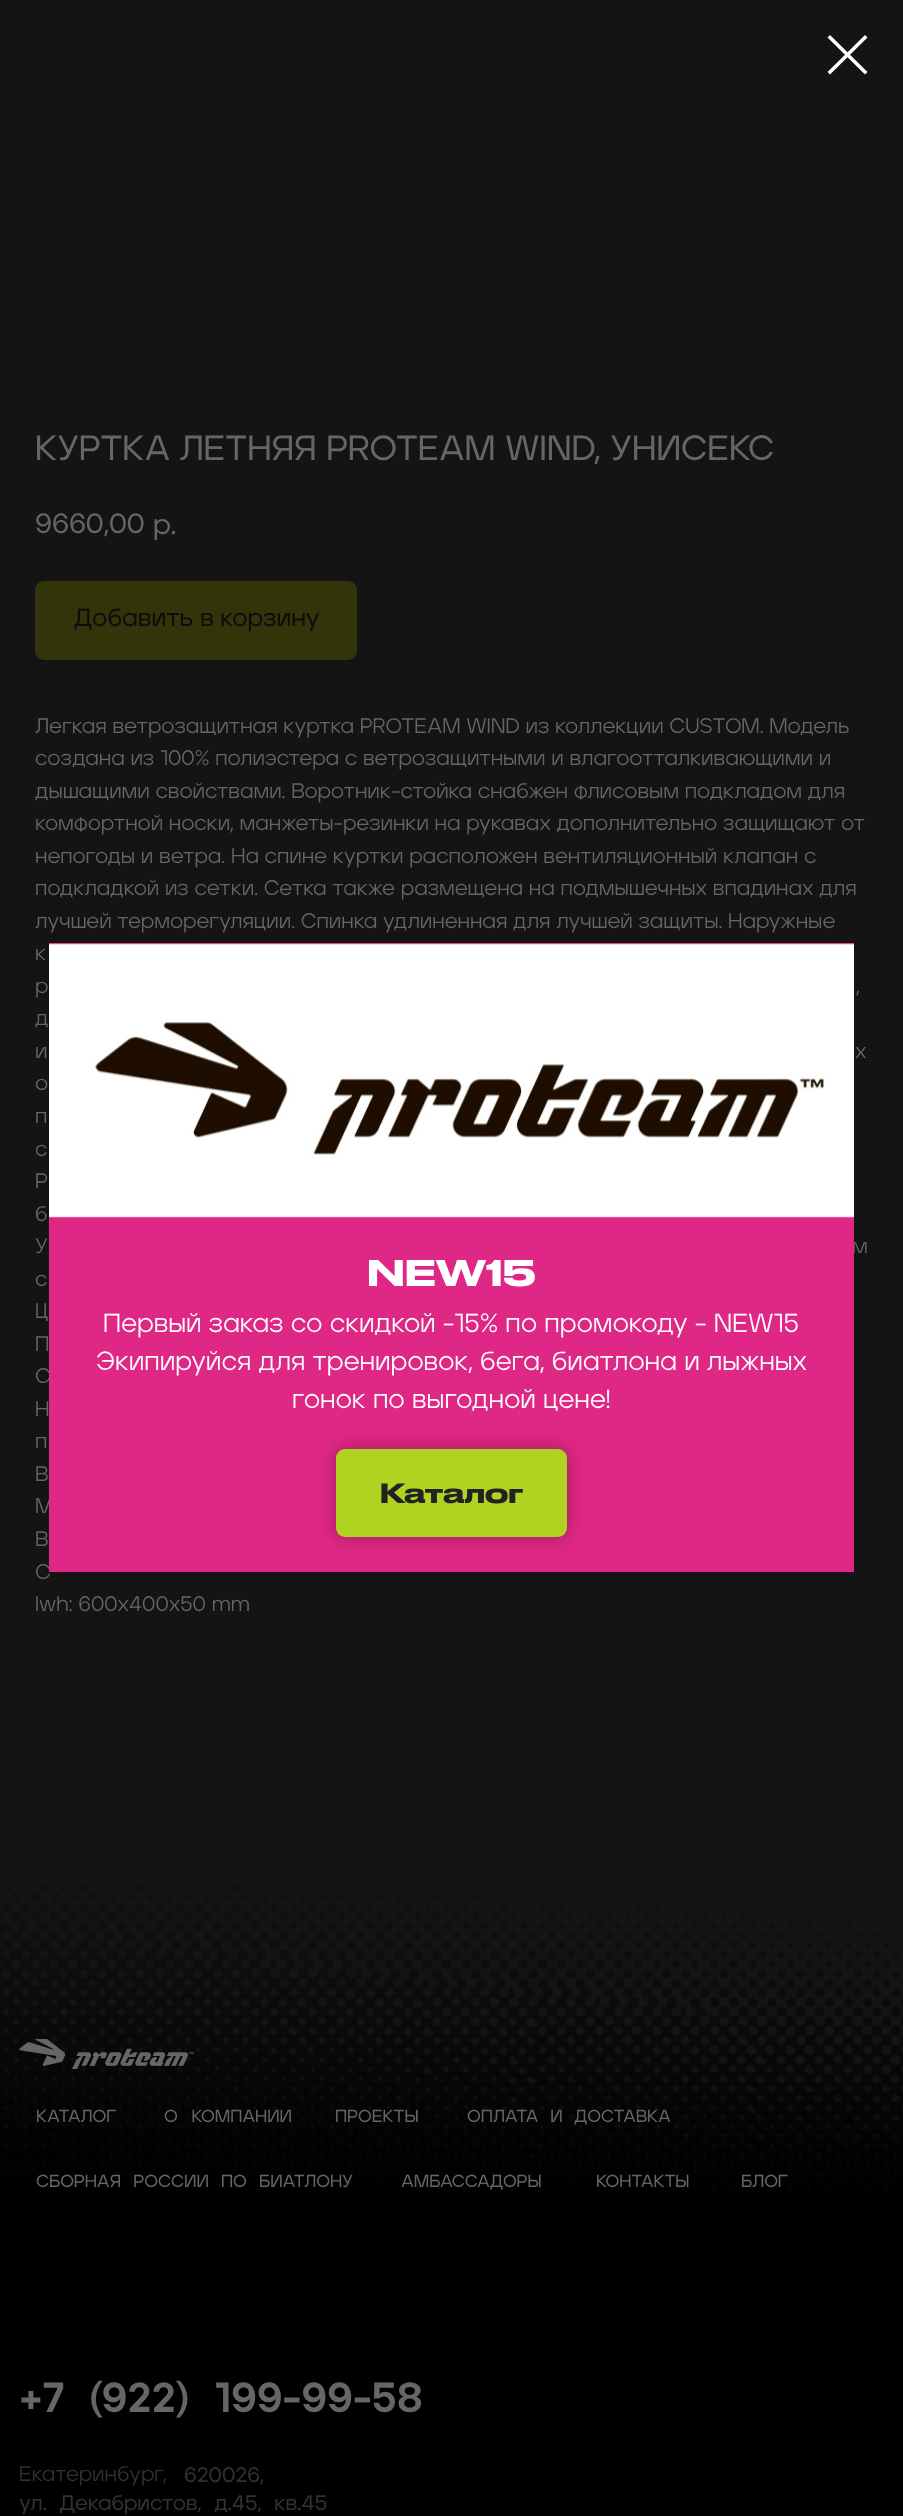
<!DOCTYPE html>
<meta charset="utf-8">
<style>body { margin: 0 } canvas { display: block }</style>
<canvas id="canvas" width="903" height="2516"></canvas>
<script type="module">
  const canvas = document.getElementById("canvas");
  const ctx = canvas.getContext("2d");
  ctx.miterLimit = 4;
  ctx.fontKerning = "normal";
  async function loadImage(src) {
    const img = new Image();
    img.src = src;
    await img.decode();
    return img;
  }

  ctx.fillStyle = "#141414";
  ctx.fillRect(0, 0, 903, 2516);
  ctx.font = "500 35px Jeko";
  ctx.fillStyle = "#666666";
  ctx.fillText("КУРТКА ЛЕТНЯЯ PROTEAM WIND, УНИСЕКС", 35, 460);
  ctx.font = "500 28px Jeko";
  ctx.fillText("9660,00", 35, 533);
  ctx.fillText("р.", 153, 534);
  ctx.fillStyle = "#32340a";
  ctx.beginPath();
  ctx.roundRect(35, 581, 322, 79, 9);
  ctx.fill();
  ctx.font = "500 24.5px Jeko";
  ctx.fillStyle = "#0d0d0d";
  ctx.fillText("Добавить в корзину", 74, 626);
  ctx.font = "21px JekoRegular";
  ctx.fillStyle = "#666666";
  ctx.fillText("Легкая ветрозащитная куртка PROTEAM WIND из коллекции CUSTOM. Модель", 35, 733);
  ctx.fillText("создана из 100% полиэстера с ветрозащитными и влагоотталкивающими и", 35, 765);
  ctx.fillText("дышащими свойствами. Воротник-стойка снабжен флисовым подкладом для", 35, 798);
  ctx.fillText("комфортной носки, манжеты-резинки на рукавах дополнительно защищают от", 35, 830);
  ctx.fillText("непогоды и ветра. На спине куртки расположен вентиляционный клапан с", 35, 863);
  ctx.fillText("подкладкой из сетки. Сетка также размещена на подмышечных впадинах для", 35, 895);
  ctx.fillText("лучшей терморегуляции. Спинка удлиненная для лучшей защиты. Наружные", 35, 928);
  ctx.fillText("к", 35, 960);
  ctx.fillText("р", 35, 993);
  ctx.fillText(",", 856, 993);
  ctx.fillText("д", 35, 1025);
  ctx.fillText("и", 35, 1058);
  ctx.fillText("х", 855, 1058);
  ctx.fillText("о", 35, 1090);
  ctx.fillText("п", 35, 1123);
  ctx.fillText("с", 35, 1156);
  ctx.fillText("P", 35, 1188);
  ctx.fillText("б", 35, 1221);
  ctx.fillText("У", 35, 1253);
  ctx.fillText("м", 852, 1253);
  ctx.fillText("с", 35, 1286);
  ctx.fillText("Ц", 35, 1318);
  ctx.fillText("П", 35, 1351);
  ctx.fillText("С", 35, 1383);
  ctx.fillText("Н", 35, 1416);
  ctx.fillText("п", 35, 1448);
  ctx.fillText("В", 35, 1481);
  ctx.fillText("М", 35, 1513);
  ctx.fillText("В", 35, 1546);
  ctx.fillText("С", 35, 1579);
  ctx.fillText("lwh: 600x400x50 mm", 35, 1611);
  ctx.fillStyle = "#ffffff";
  ctx.beginPath();
  ctx.moveTo(827.5, 37.5);
  ctx.lineTo(830, 35);
  ctx.lineTo(867.5, 72);
  ctx.lineTo(865, 74.5);
  ctx.closePath();
  ctx.fill("evenodd");
  ctx.beginPath();
  ctx.moveTo(865, 35);
  ctx.lineTo(867.5, 37.5);
  ctx.lineTo(830, 74.5);
  ctx.lineTo(827.5, 72);
  ctx.closePath();
  ctx.fill("evenodd");
  ctx.fillStyle = "#df2885";
  ctx.fillRect(49, 943, 805, 629);
  ctx.drawImage(await loadImage("img1.png"), 49, 943, 805, 275);
  ctx.font = "500 35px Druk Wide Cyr";
  ctx.fillStyle = "#ffffff";
  ctx.fillText("NEW15", 367, 1286);
  ctx.font = "26.25px JekoRegular";
  ctx.fillText("Первый заказ со скидкой -15% по промокоду - NEW15", 103, 1332);
  ctx.fillText("Экипируйся для тренировок, бега, биатлона и лыжных", 96, 1370);
  ctx.fillText("гонок по выгодной цене!", 292, 1408);
  ctx.fillStyle = "rgba(0, 0, 0, 0.3)";
  ctx.filter = "blur(9px)";
  ctx.beginPath();
  ctx.roundRect(336, 1449, 231, 88, 9);
  ctx.fill();
  ctx.filter = "none";
  ctx.fillStyle = "#b0d220";
  ctx.beginPath();
  ctx.roundRect(336, 1449, 231, 88, 9);
  ctx.fill();
  ctx.font = "500 26.25px Druk Wide Cyr";
  ctx.fillStyle = "#222222";
  ctx.fillText("Каталог", 380, 1503);
  ctx.drawImage(await loadImage("img2.png"), 0, 1869, 903, 647);
  ctx.drawImage(await loadImage("img3.png"), 19, 2039, 175, 30);
  ctx.font = "500 17.5px Jeko";
  ctx.fillStyle = "#666666";
  ctx.fillText("КАТАЛОГ", 36, 2122);
  ctx.wordSpacing = "9px";
  ctx.fillText("О КОМПАНИИ", 164, 2122);
  ctx.wordSpacing = "0px";
  ctx.fillText("ПРОЕКТЫ", 335, 2122);
  ctx.wordSpacing = "7px";
  ctx.fillText("ОПЛАТА И ДОСТАВКА", 467, 2122);
  ctx.wordSpacing = "7.5px";
  ctx.fillText("СБОРНАЯ РОССИИ ПО БИАТЛОНУ", 36, 2187);
  ctx.wordSpacing = "0px";
  ctx.fillText("АМБАССАДОРЫ", 401, 2187);
  ctx.fillText("КОНТАКТЫ", 596, 2187);
  ctx.fillText("БЛОГ", 741, 2187);
  ctx.wordSpacing = "14px";
  ctx.font = "800 42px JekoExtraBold";
  ctx.fillText("+7 (922) 199-99-58", 19, 2412);
  ctx.wordSpacing = "0px";
  ctx.font = "21px JekoRegular";
  ctx.fillStyle = "#323231";
  ctx.fillText("Екатеринбург,", 19, 2481);
  ctx.font = "500 21px Jeko";
  ctx.fillText("620026,", 184, 2482);
  ctx.wordSpacing = "7px";
  ctx.fillText("ул. Декабристов, д.45, кв.45", 19, 2510);
</script>
